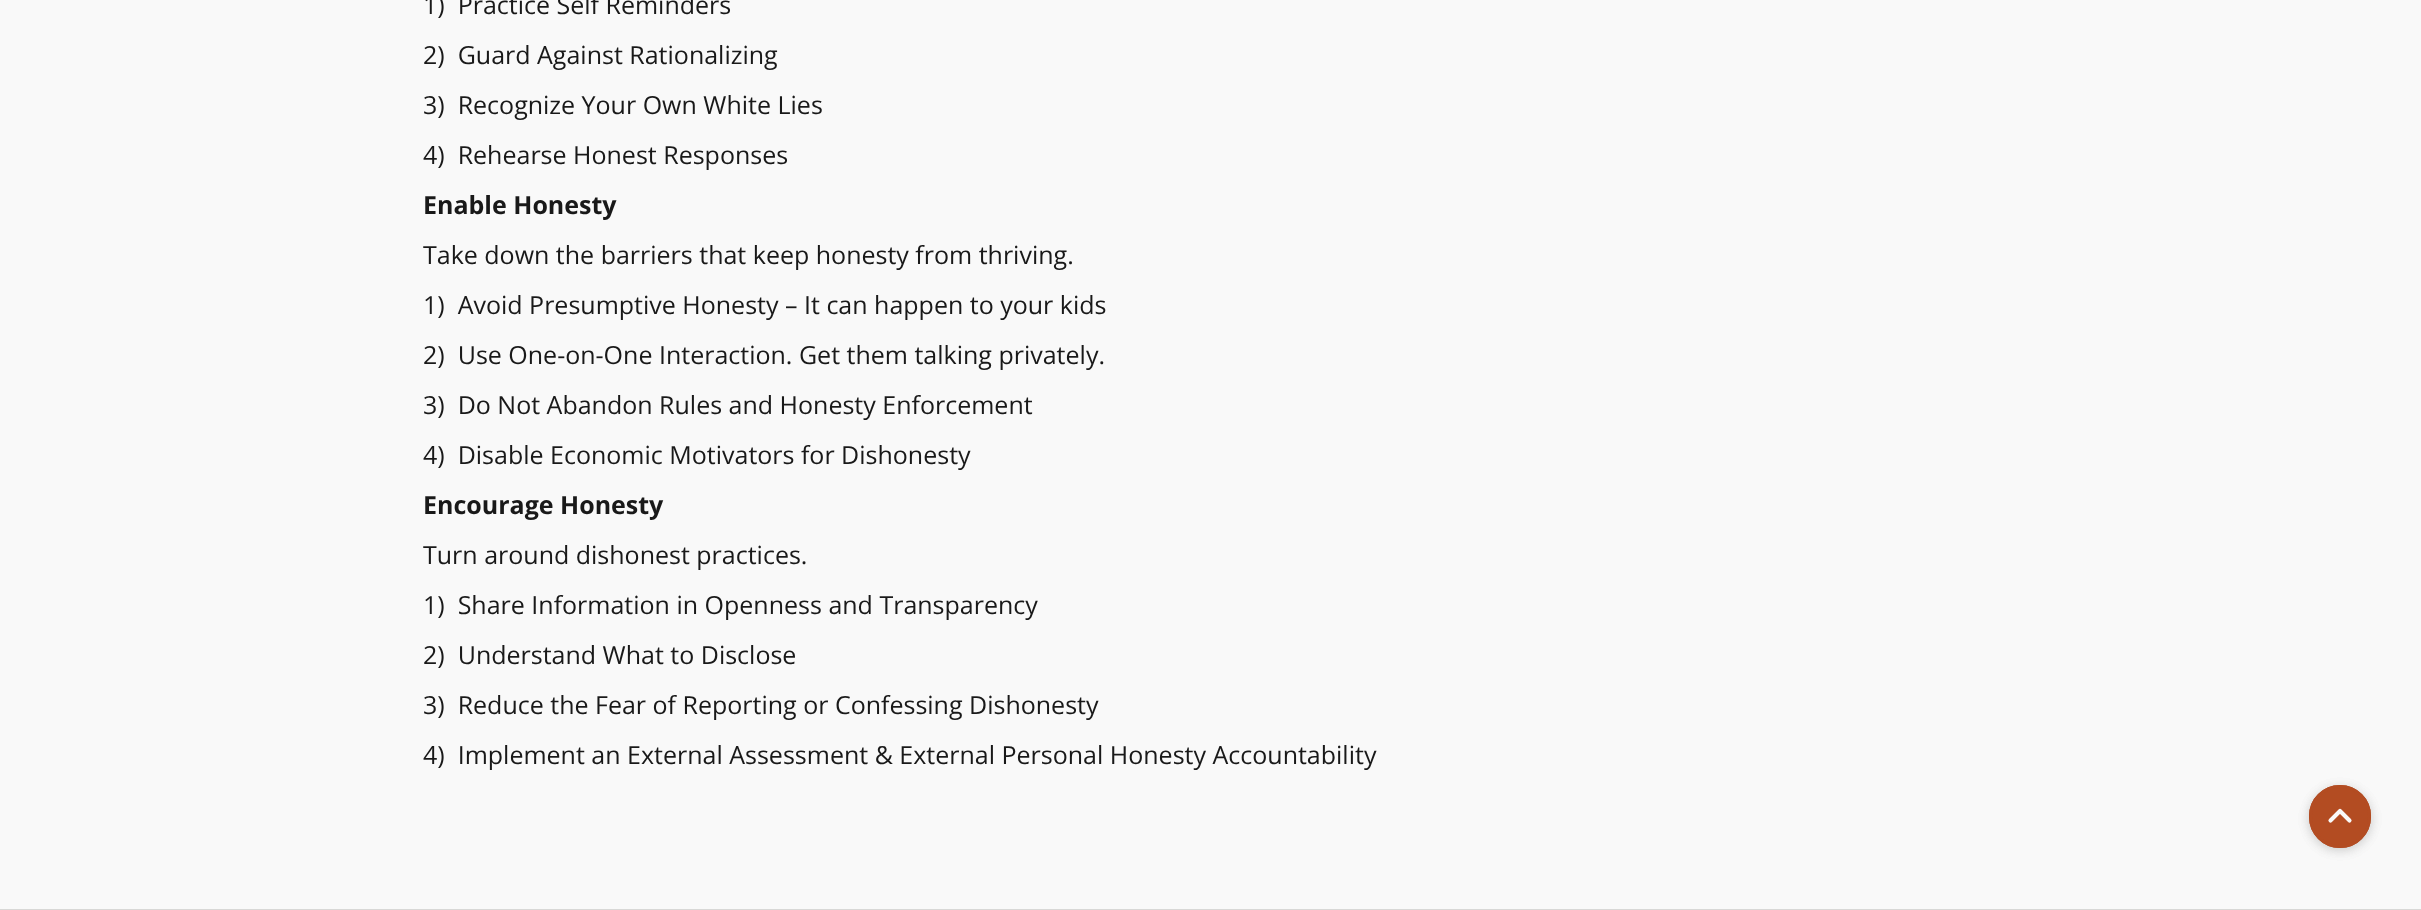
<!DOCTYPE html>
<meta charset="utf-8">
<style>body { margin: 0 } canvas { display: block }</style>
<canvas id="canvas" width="2421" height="910"></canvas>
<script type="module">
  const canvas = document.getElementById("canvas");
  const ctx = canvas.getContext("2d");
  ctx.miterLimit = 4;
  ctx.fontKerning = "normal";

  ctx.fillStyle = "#f9f9f9";
  ctx.fillRect(0, 0, 2421, 910);
  ctx.font = "25px Open Sans";
  ctx.fillStyle = "#191919";
  ctx.fillText("1)  Practice Self Reminders", 423, 14);
  ctx.fillText("2)  Guard Against Rationalizing", 423, 64);
  ctx.fillText("3)  Recognize Your Own White Lies", 423, 114);
  ctx.fillText("4)  Rehearse Honest Responses", 423, 164);
  ctx.font = "bold 25px Open Sans";
  ctx.fillText("Enable Honesty", 423, 214);
  ctx.font = "25px Open Sans";
  ctx.fillText("Take down the barriers that keep honesty from thriving.", 423, 264);
  ctx.fillText("1)  Avoid Presumptive Honesty – It can happen to your kids", 423, 314);
  ctx.fillText("2)  Use One-on-One Interaction. Get them talking privately.", 423, 364);
  ctx.fillText("3)  Do Not Abandon Rules and Honesty Enforcement", 423, 414);
  ctx.fillText("4)  Disable Economic Motivators for Dishonesty", 423, 464);
  ctx.font = "bold 25px Open Sans";
  ctx.fillText("Encourage Honesty", 423, 514);
  ctx.font = "25px Open Sans";
  ctx.fillText("Turn around dishonest practices.", 423, 564);
  ctx.fillText("1)  Share Information in Openness and Transparency", 423, 614);
  ctx.fillText("2)  Understand What to Disclose", 423, 664);
  ctx.fillText("3)  Reduce the Fear of Reporting or Confessing Dishonesty", 423, 714);
  ctx.fillText("4)  Implement an External Assessment & External Personal Honesty Accountability", 423, 764);
  ctx.fillStyle = "rgba(0, 0, 0, 0.1)";
  ctx.filter = "blur(6px)";
  ctx.beginPath();
  ctx.roundRect(2309, 788, 62, 62, 31);
  ctx.fill();
  ctx.filter = "none";
  ctx.beginPath();
  ctx.roundRect(2310.5, 786.5, 59, 60, 29.5);
  ctx.strokeStyle = "#b34c22";
  ctx.lineWidth = 3;
  ctx.stroke();
  ctx.filter = "blur(6px)";
  ctx.beginPath();
  ctx.roundRect(2309, 788, 62, 62, 31);
  ctx.fill();
  ctx.filter = "none";
  ctx.fillStyle = "#b34c22";
  ctx.beginPath();
  ctx.roundRect(2310.5, 786.5, 59, 60, 29.5);
  ctx.fill();
  ctx.stroke();
  ctx.beginPath();
  ctx.moveTo(2330.5, 820.5);
  ctx.lineTo(2340, 811);
  ctx.lineTo(2349.5, 820.5);
  ctx.strokeStyle = "#f9f9f9";
  ctx.lineWidth = 4.1;
  ctx.lineCap = "round";
  ctx.lineJoin = "round";
  ctx.stroke();
  ctx.fillStyle = "#d8d8d6";
  ctx.fillRect(0, 909, 2421, 1);
</script>
